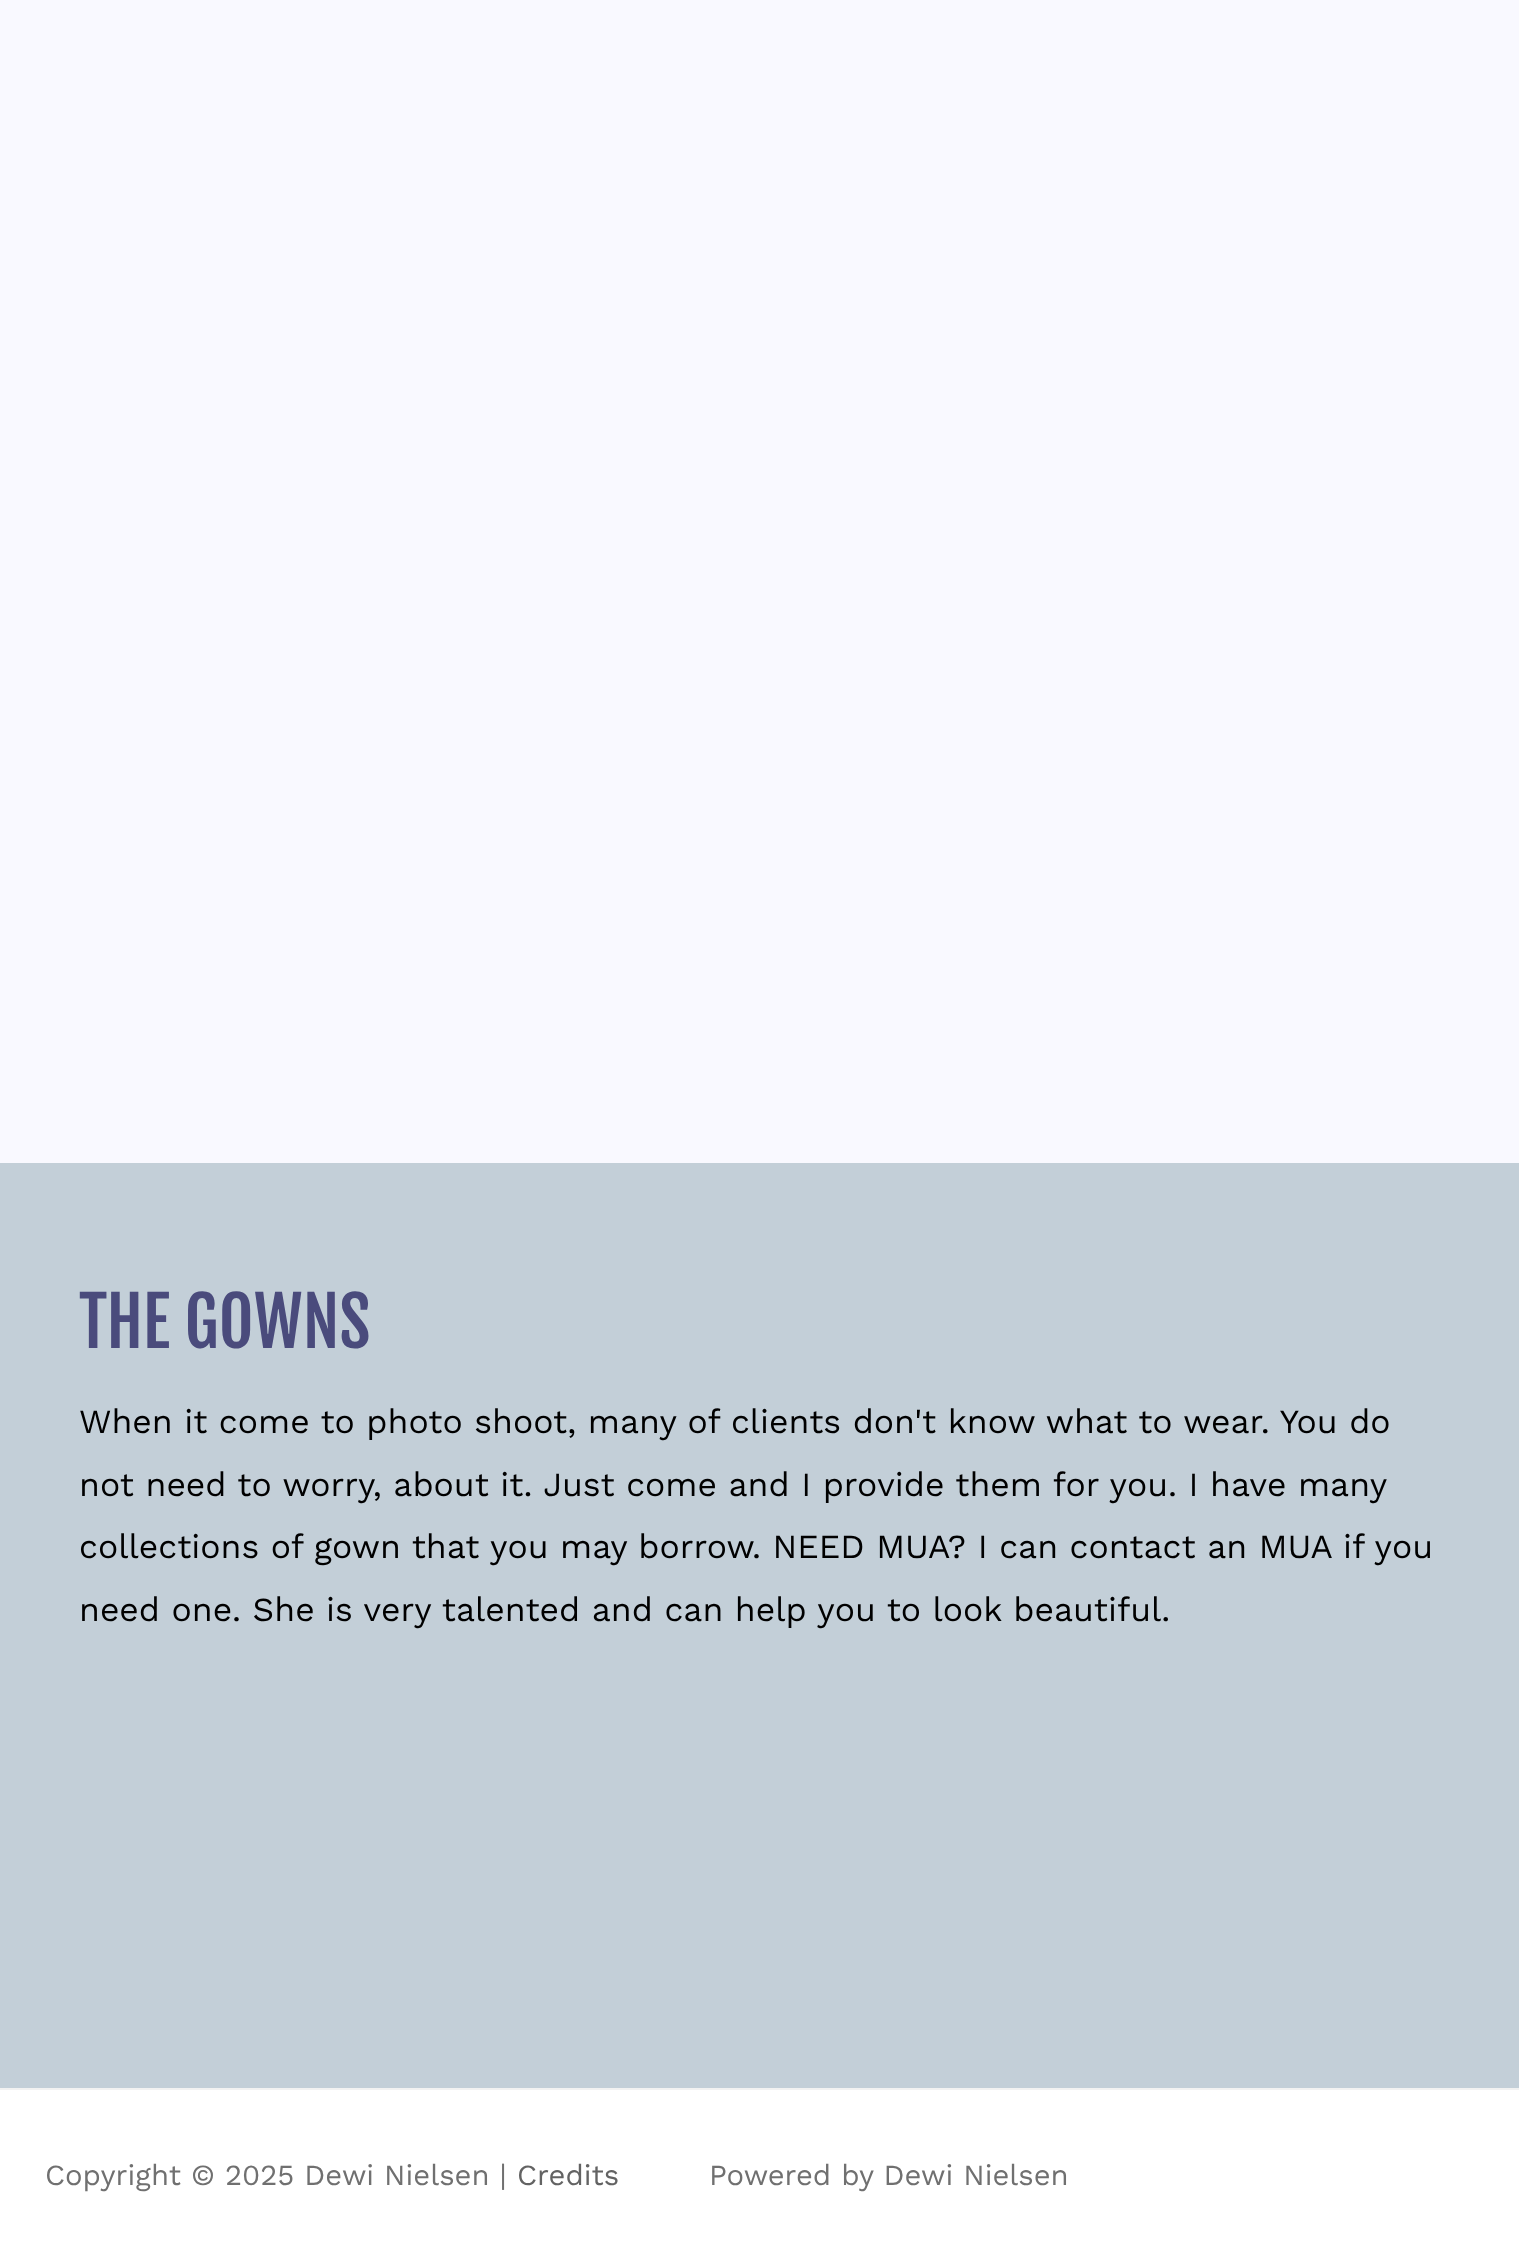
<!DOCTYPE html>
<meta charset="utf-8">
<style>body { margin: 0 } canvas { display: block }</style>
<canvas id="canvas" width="1519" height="2261"></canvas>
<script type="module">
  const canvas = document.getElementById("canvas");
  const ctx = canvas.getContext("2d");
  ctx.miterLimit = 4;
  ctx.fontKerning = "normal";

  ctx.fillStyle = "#ffffff";
  ctx.fillRect(0, 0, 1519, 2261);
  ctx.fillStyle = "#f9f9ff";
  ctx.fillRect(0, 0, 1519, 1163);
  ctx.fillStyle = "#c3cfd8";
  ctx.fillRect(0, 1163, 1519, 925);
  ctx.font = "67.5px Fjalla One";
  ctx.fillStyle = "#4a4b7c";
  ctx.fillText("THE GOWNS", 79, 1348);
  ctx.font = "33.75px Work Sans";
  ctx.fillStyle = "#000000";
  ctx.fillText("When it come to photo shoot, many of clients don't know what to wear. You do", 79, 1433);
  ctx.fillText("not need to worry, about it. Just come and I provide them for you. I have many", 79, 1496);
  ctx.fillText("collections of gown that you may borrow. NEED MUA? I can contact an MUA if you", 79, 1558);
  ctx.fillText("need one. She is very talented and can help you to look beautiful.", 79, 1621);
  ctx.fillStyle = "#f2f2f2";
  ctx.fillRect(0, 2088, 1519, 2);
  ctx.font = "29.25px Work Sans";
  ctx.fillStyle = "#707070";
  ctx.fillText("Copyright © 2025 Dewi Nielsen |", 45, 2185);
  ctx.fillStyle = "#636363";
  ctx.fillText("Credits", 517, 2185);
  ctx.fillStyle = "#707070";
  ctx.fillText("Powered by Dewi Nielsen", 709, 2185);
</script>
